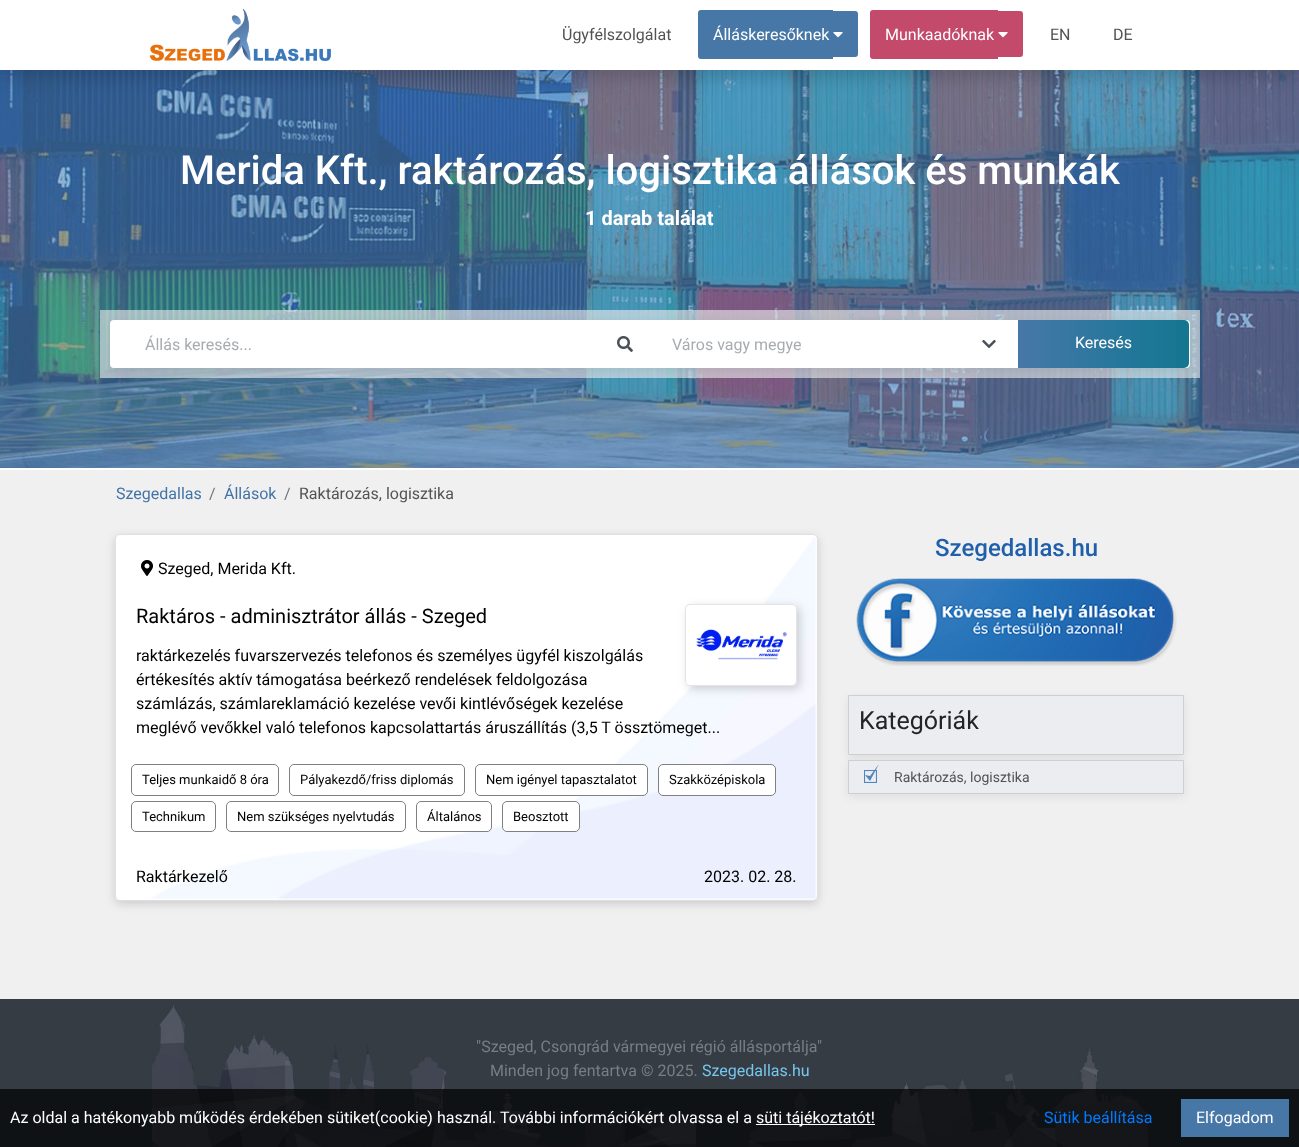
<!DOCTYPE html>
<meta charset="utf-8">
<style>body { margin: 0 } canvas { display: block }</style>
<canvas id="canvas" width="1299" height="1147"></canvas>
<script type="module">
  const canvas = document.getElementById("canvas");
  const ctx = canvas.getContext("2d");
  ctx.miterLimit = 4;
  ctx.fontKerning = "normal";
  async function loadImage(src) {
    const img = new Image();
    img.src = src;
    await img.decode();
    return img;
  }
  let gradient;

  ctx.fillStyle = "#f0f0f0";
  ctx.fillRect(0, 0, 1299, 1147);
  ctx.drawImage(await loadImage("img4.png"), 0, 70, 1299, 398);
  ctx.fillStyle = "rgba(0, 0, 0, 0.15)";
  ctx.filter = "blur(8px)";
  ctx.beginPath();
  ctx.rect(0, 8, 1299, 70);
  ctx.fill();
  ctx.filter = "none";
  ctx.fillStyle = "#ffffff";
  ctx.fillRect(0, 0, 1299, 70);
  ctx.drawImage(await loadImage("img1.png"), 149, 8, 182, 54);
  ctx.font = "16px Roboto";
  ctx.fillStyle = "#515354";
  ctx.fillText("Ügyfélszolgálat", 562, 40);
  ctx.fillStyle = "#4777a7";
  ctx.beginPath();
  ctx.roundRect(698, 10, 135, 49, [3, 0, 0, 3]);
  ctx.fill();
  ctx.beginPath();
  ctx.roundRect(833, 11, 25, 46, [0, 3, 3, 0]);
  ctx.fill();
  ctx.fillStyle = "#ffffff";
  ctx.fillText("Álláskeresőknek", 713, 40);
  ctx.drawImage(await loadImage("img2.png"), 833, 32, 10, 6);
  ctx.fillStyle = "#c44a6b";
  ctx.beginPath();
  ctx.roundRect(870, 10, 128, 49, [3, 0, 0, 3]);
  ctx.fill();
  ctx.beginPath();
  ctx.roundRect(998, 11, 25, 46, [0, 3, 3, 0]);
  ctx.fill();
  ctx.fillStyle = "#ffffff";
  ctx.fillText("Munkaadóknak", 885, 40);
  ctx.drawImage(await loadImage("img3.png"), 998, 32, 10, 6);
  ctx.fillStyle = "#515354";
  ctx.fillText("EN", 1050, 40);
  ctx.fillText("DE", 1113, 40);
  ctx.fillStyle = "#ffffff";
  ctx.fillRect(0, 468, 1299, 2);
  ctx.font = "500 40px Roboto";
  ctx.fillText("Merida Kft., raktározás, logisztika állások és munkák", 180, 184);
  ctx.font = "bold 20px Roboto";
  ctx.fillText("1 darab találat", 585, 225);
  ctx.fillStyle = "rgba(240, 240, 240, 0.6)";
  ctx.fillRect(100, 310, 1100, 68);
  ctx.fillStyle = "rgba(0, 0, 0, 0.07)";
  ctx.filter = "blur(5px)";
  ctx.beginPath();
  ctx.roundRect(110, 323, 1080, 48, 4);
  ctx.fill();
  ctx.filter = "none";
  ctx.fillStyle = "#ffffff";
  ctx.beginPath();
  ctx.roundRect(110, 320, 1080, 48, 4);
  ctx.fill();
  ctx.font = "16px Roboto";
  ctx.fillStyle = "#a7acb1";
  ctx.fillText("Állás keresés...", 145, 350);
  ctx.drawImage(await loadImage("img5.png"), 617, 336, 16, 16);
  ctx.fillText("Város vagy megye", 672, 350);
  ctx.drawImage(await loadImage("img6.png"), 982, 339, 14, 10);
  gradient = ctx.createLinearGradient(1018, 344, 1189, 344);
  gradient.addColorStop(0, "#4777a7");
  gradient.addColorStop(0.25, "#3977a3");
  gradient.addColorStop(0.5, "#2b779d");
  gradient.addColorStop(0.75, "#1e7797");
  gradient.addColorStop(1, "#147690");
  ctx.fillStyle = gradient;
  ctx.beginPath();
  ctx.roundRect(1018, 320, 171, 48, [0, 5, 5, 0]);
  ctx.fill();
  ctx.fillStyle = "#ffffff";
  ctx.fillText("Keresés", 1075, 348);
  ctx.fillStyle = "#4273a6";
  ctx.fillText("Szegedallas", 116, 499);
  ctx.fillStyle = "#6c757d";
  ctx.fillText("/", 209, 499);
  ctx.fillStyle = "#4273a6";
  ctx.fillText("Állások", 224, 499);
  ctx.fillStyle = "#6c757d";
  ctx.fillText("/", 284, 499);
  ctx.fillStyle = "#515354";
  ctx.fillText("Raktározás, logisztika", 299, 499);
  ctx.fillStyle = "rgba(0, 0, 0, 0.15)";
  ctx.filter = "blur(5px)";
  ctx.beginPath();
  ctx.roundRect(115, 537, 703, 367, 5);
  ctx.fill();
  ctx.filter = "none";
  ctx.fillStyle = "#ffffff";
  ctx.beginPath();
  ctx.roundRect(115, 534, 703, 367, 5);
  ctx.fill();
  ctx.beginPath();
  ctx.roundRect(115.5, 534.5, 702, 366, 4.5);
  ctx.strokeStyle = "rgba(0, 0, 0, 0.12)";
  ctx.stroke();
  ctx.drawImage(await loadImage("img7.png"), 151, 537, 666, 363);
  ctx.drawImage(await loadImage("img8.png"), 141, 560, 12, 16);
  ctx.fillStyle = "#000000";
  ctx.fillText("Szeged, Merida Kft.", 158, 574);
  ctx.fillStyle = "rgba(0, 0, 0, 0.17)";
  ctx.filter = "blur(5px)";
  ctx.beginPath();
  ctx.roundRect(688, 607, 112, 82, 5);
  ctx.fill();
  ctx.filter = "none";
  ctx.fillStyle = "#ffffff";
  ctx.beginPath();
  ctx.roundRect(685, 604, 112, 82, 5);
  ctx.fill();
  ctx.beginPath();
  ctx.roundRect(685.5, 604.5, 111, 81, 4.5);
  ctx.strokeStyle = "rgba(211, 211, 211, 0.6)";
  ctx.stroke();
  ctx.drawImage(await loadImage("img9.png"), 696, 629, 91, 31);
  ctx.font = "20px Roboto";
  ctx.fillStyle = "#000000";
  ctx.fillText("Raktáros - adminisztrátor állás - Szeged", 136, 623);
  ctx.font = "16px Roboto";
  ctx.fillText("raktárkezelés fuvarszervezés telefonos és személyes ügyfél kiszolgálás", 136, 661);
  ctx.fillText("értékesítés aktív támogatása beérkező rendelések feldolgozása", 136, 685);
  ctx.fillText("számlázás, számlareklamáció kezelése vevői kintlévőségek kezelése", 136, 709);
  ctx.fillText("meglévő vevőkkel való telefonos kapcsolattartás áruszállítás (3,5 T össztömeget...", 136, 733);
  ctx.beginPath();
  ctx.roundRect(131.5, 764.5, 147, 31, 4.5);
  ctx.strokeStyle = "#808080";
  ctx.stroke();
  ctx.font = "13px Roboto";
  ctx.fillText("Teljes munkaidő 8 óra", 142, 784);
  ctx.beginPath();
  ctx.roundRect(289.5, 764.5, 175, 31, 4.5);
  ctx.stroke();
  ctx.fillText("Pályakezdő/friss diplomás", 300, 784);
  ctx.fillStyle = "#ffffff";
  ctx.beginPath();
  ctx.roundRect(475.5, 764.5, 172, 31, 4.5);
  ctx.fill();
  ctx.stroke();
  ctx.fillStyle = "#000000";
  ctx.fillText("Nem igényel tapasztalatot", 486, 784);
  ctx.fillStyle = "#ffffff";
  ctx.beginPath();
  ctx.roundRect(658.5, 764.5, 117, 31, 4.5);
  ctx.fill();
  ctx.stroke();
  ctx.fillStyle = "#000000";
  ctx.fillText("Szakközépiskola", 669, 784);
  ctx.beginPath();
  ctx.roundRect(131.5, 801.5, 84, 30, 4.5);
  ctx.stroke();
  ctx.fillText("Technikum", 142, 821);
  ctx.beginPath();
  ctx.roundRect(226.5, 801.5, 179, 30, 4.5);
  ctx.stroke();
  ctx.fillText("Nem szükséges nyelvtudás", 237, 821);
  ctx.fillStyle = "#ffffff";
  ctx.beginPath();
  ctx.roundRect(416.5, 801.5, 75, 30, 4.5);
  ctx.fill();
  ctx.stroke();
  ctx.fillStyle = "#000000";
  ctx.fillText("Általános", 427, 821);
  ctx.fillStyle = "#ffffff";
  ctx.beginPath();
  ctx.roundRect(502.5, 801.5, 77, 30, 4.5);
  ctx.fill();
  ctx.stroke();
  ctx.fillStyle = "#000000";
  ctx.fillText("Beosztott", 513, 821);
  ctx.font = "16px Roboto";
  ctx.fillText("Raktárkezelő", 136, 882);
  ctx.fillText("2023. 02. 28.", 704, 882);
  ctx.font = "500 24px Roboto";
  ctx.fillStyle = "#2060ab";
  ctx.fillText("Szegedallas.hu", 935, 556);
  ctx.drawImage(await loadImage("img10.png"), 856, 578, 321, 88);
  ctx.fillStyle = "rgba(0, 0, 0, 0.07)";
  ctx.filter = "blur(5px)";
  ctx.beginPath();
  ctx.rect(848, 698, 336, 60);
  ctx.fill();
  ctx.filter = "none";
  ctx.fillStyle = "#ebedf0";
  ctx.beginPath();
  ctx.rect(848.5, 695.5, 335, 59);
  ctx.fill();
  ctx.strokeStyle = "#cecfd2";
  ctx.stroke();
  ctx.font = "25px Roboto";
  ctx.fillStyle = "#212529";
  ctx.fillText("Kategóriák", 859, 729);
  ctx.fillStyle = "rgba(0, 0, 0, 0.07)";
  ctx.filter = "blur(5px)";
  ctx.beginPath();
  ctx.rect(848, 763, 336, 34);
  ctx.fill();
  ctx.filter = "none";
  ctx.fillStyle = "#ebedf0";
  ctx.beginPath();
  ctx.rect(848.5, 760.5, 335, 33);
  ctx.fill();
  ctx.stroke();
  ctx.drawImage(await loadImage("img11.png"), 864, 764, 15, 19);
  ctx.font = "14px Roboto";
  ctx.fillStyle = "#515354";
  ctx.fillText("Raktározás, logisztika", 894, 782);
  ctx.fillStyle = "#353c44";
  ctx.fillRect(0, 999, 1299, 148);
  ctx.drawImage(await loadImage("img12.png"), 152, 1005, 996, 142);
  ctx.fillStyle = "rgba(0, 0, 0, 0.7)";
  ctx.fillRect(0, 1089, 1299, 58);
  ctx.font = "16px Roboto";
  ctx.fillStyle = "#ffffff";
  ctx.fillText("Az oldal a hatékonyabb működés érdekében sütiket(cookie) használ. További információkért olvassa el a", 10, 1123);
  ctx.fillRect(756, 1124, 119, 1);
  ctx.fillText("süti tájékoztatót!", 756, 1123);
  ctx.fillStyle = "#007bff";
  ctx.fillText("Sütik beállítása", 1044, 1123);
  ctx.fillStyle = "#4777a7";
  ctx.fillRect(1181, 1099, 108, 38);
  ctx.fillStyle = "#ffffff";
  ctx.fillText("Elfogadom", 1196, 1123);
  ctx.fillStyle = "#777e86";
  ctx.fillText("\"Szeged, Csongrád vármegyei régió állásportálja\"", 476, 1052);
  ctx.fillText("Minden jog fentartva © 2025.", 490, 1076);
  ctx.fillStyle = "#76c8ee";
  ctx.fillText("Szegedallas.hu", 702, 1076);
</script>
